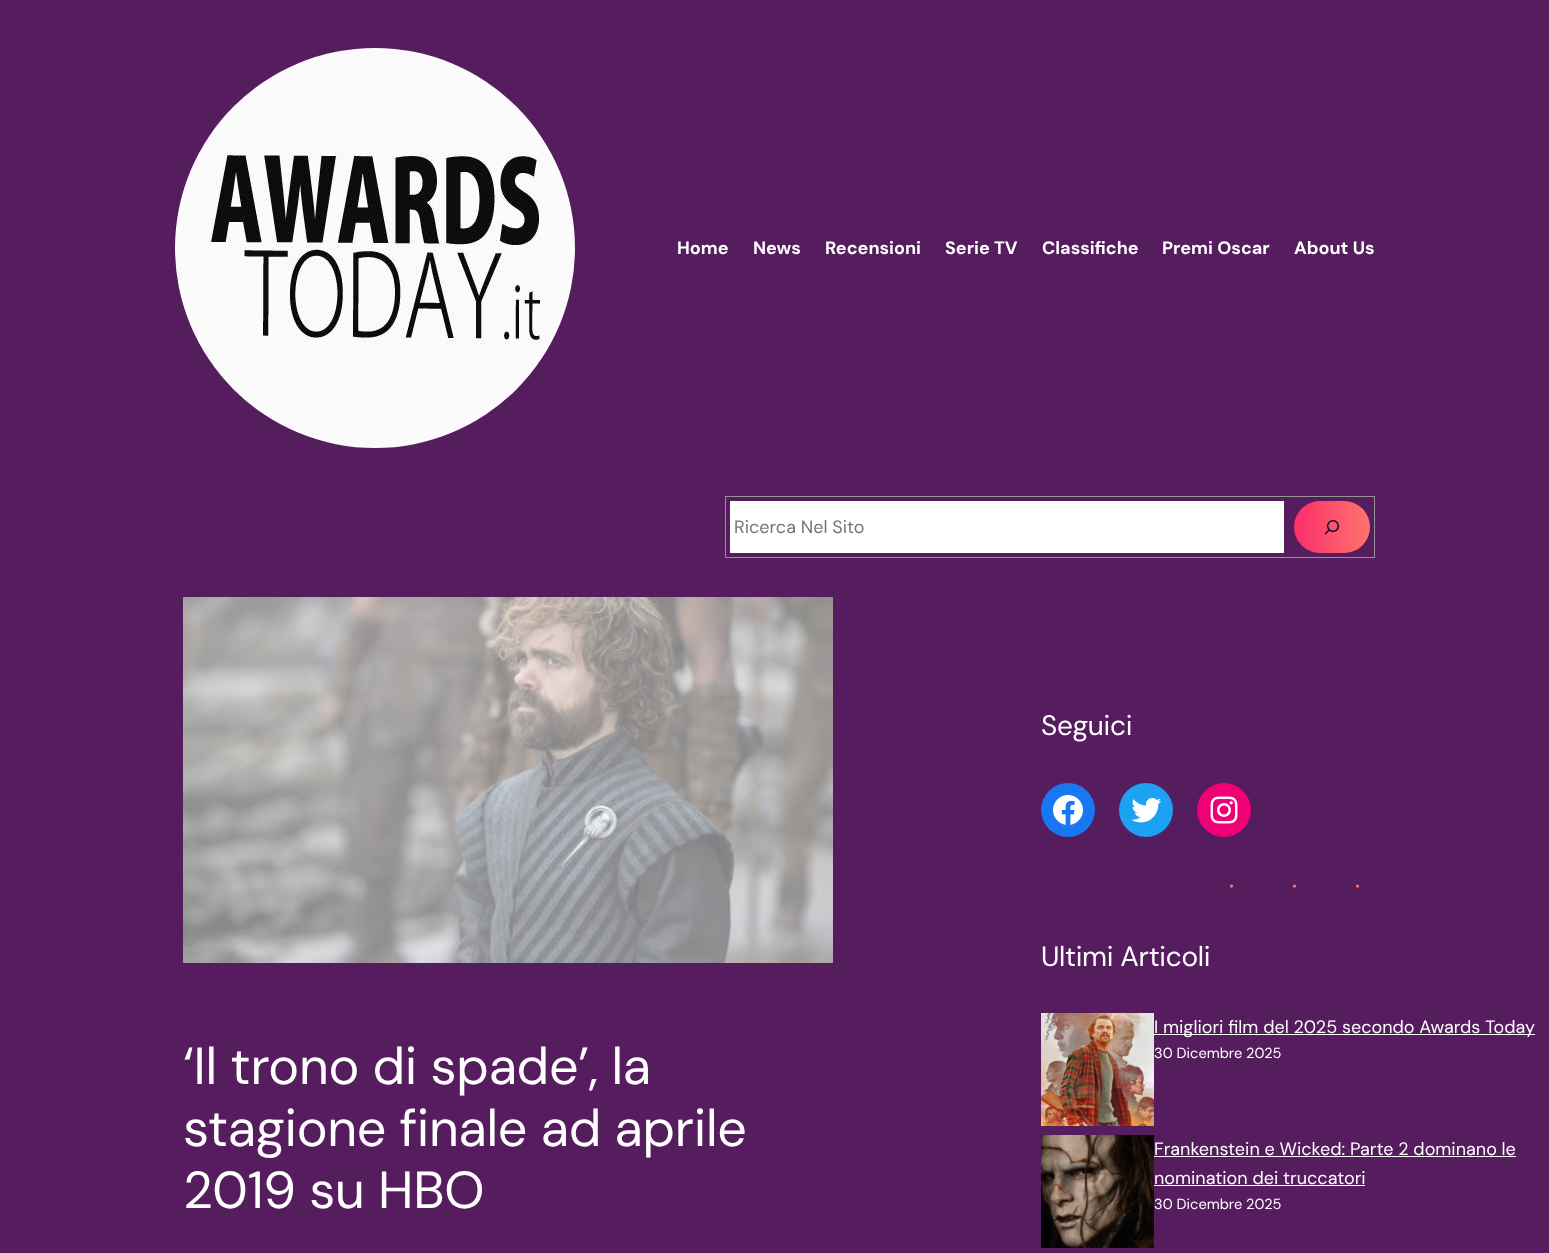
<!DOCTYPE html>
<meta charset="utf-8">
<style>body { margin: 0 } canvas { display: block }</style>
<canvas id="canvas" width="1549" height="1253"></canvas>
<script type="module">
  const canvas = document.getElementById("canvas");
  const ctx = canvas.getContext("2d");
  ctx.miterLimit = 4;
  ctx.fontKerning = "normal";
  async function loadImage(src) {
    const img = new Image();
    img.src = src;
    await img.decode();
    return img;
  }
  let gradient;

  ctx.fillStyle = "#551c5e";
  ctx.fillRect(0, 0, 1549, 1253);
  ctx.drawImage(await loadImage("img1.png"), 175, 48, 400, 400);
  ctx.font = "bold 18px DM Sans";
  ctx.fillStyle = "#ffffff";
  ctx.fillText("Home", 677, 254);
  ctx.fillText("News", 753, 254);
  ctx.fillText("Recensioni", 825, 254);
  ctx.fillText("Serie TV", 945, 254);
  ctx.fillText("Classifiche", 1042, 254);
  ctx.fillText("Premi Oscar", 1162, 254);
  ctx.fillText("About Us", 1294, 254);
  ctx.strokeStyle = "#949494";
  ctx.strokeRect(725.5, 496.5, 649, 61);
  ctx.fillRect(730, 501, 554, 52);
  ctx.font = "18px DM Sans";
  ctx.fillStyle = "#757575";
  ctx.fillText("Ricerca Nel Sito", 734, 533);
  gradient = ctx.createLinearGradient(1294, 527, 1370, 527);
  gradient.addColorStop(0.06, "#fb326b");
  gradient.addColorStop(1, "#ff746d");
  ctx.fillStyle = gradient;
  ctx.beginPath();
  ctx.roundRect(1294, 501, 76, 52, 26);
  ctx.fill();
  ctx.drawImage(await loadImage("img2.png"), 1324, 520, 16, 15);
  ctx.drawImage(await loadImage("img3.png"), 183, 597, 650, 366);
  ctx.letterSpacing = "-0.3px";
  ctx.font = "52px DM Sans";
  ctx.fillStyle = "#ffffff";
  ctx.fillText("‘Il trono di spade’, la", 183, 1084);
  ctx.fillText("stagione finale ad aprile", 183, 1146);
  ctx.fillText("2019 su HBO", 183, 1208);
  ctx.font = "28px DM Sans";
  ctx.fillText("Seguici", 1041, 735);
  ctx.fillStyle = "#1778f2";
  ctx.beginPath();
  ctx.arc(1068, 810, 27, 0, Math.PI * 2);
  ctx.fill();
  ctx.drawImage(await loadImage("img4.png"), 1053, 795, 30, 30);
  ctx.fillStyle = "#1da1f2";
  ctx.beginPath();
  ctx.arc(1146, 810, 27, 0, Math.PI * 2);
  ctx.fill();
  ctx.drawImage(await loadImage("img5.png"), 1131, 798, 31, 25);
  ctx.fillStyle = "#f00075";
  ctx.beginPath();
  ctx.arc(1224, 810, 27, 0, Math.PI * 2);
  ctx.fill();
  ctx.drawImage(await loadImage("img6.png"), 1210, 796, 28, 28);
  ctx.letterSpacing = "54px";
  ctx.font = "27px Liberation Serif";
  ctx.fillStyle = "#ff746d";
  ctx.fillText("···", 1227, 895);
  ctx.letterSpacing = "-0.3px";
  ctx.font = "28px DM Sans";
  ctx.fillStyle = "#ffffff";
  ctx.fillText("Ultimi Articoli", 1041, 966);
  ctx.drawImage(await loadImage("img7.png"), 1041, 1013, 113, 113);
  ctx.fillRect(1154, 1034, 381, 1);
  ctx.letterSpacing = "0px";
  ctx.font = "18px DM Sans";
  ctx.fillText("I migliori film del 2025 secondo Awards Today", 1154, 1033);
  ctx.font = "14.6px DM Sans";
  ctx.fillText("30 Dicembre 2025", 1154, 1058);
  ctx.drawImage(await loadImage("img8.png"), 1041, 1135, 113, 113);
  ctx.font = "18px DM Sans";
  ctx.fillText("Frankenstein e Wicked: Parte 2 dominano le", 1154, 1155);
  ctx.fillRect(1154, 1156, 362, 1);
  ctx.fillText("nomination dei truccatori", 1154, 1184);
  ctx.fillRect(1154, 1185, 211, 1);
  ctx.font = "14.6px DM Sans";
  ctx.fillText("30 Dicembre 2025", 1154, 1209);
</script>
